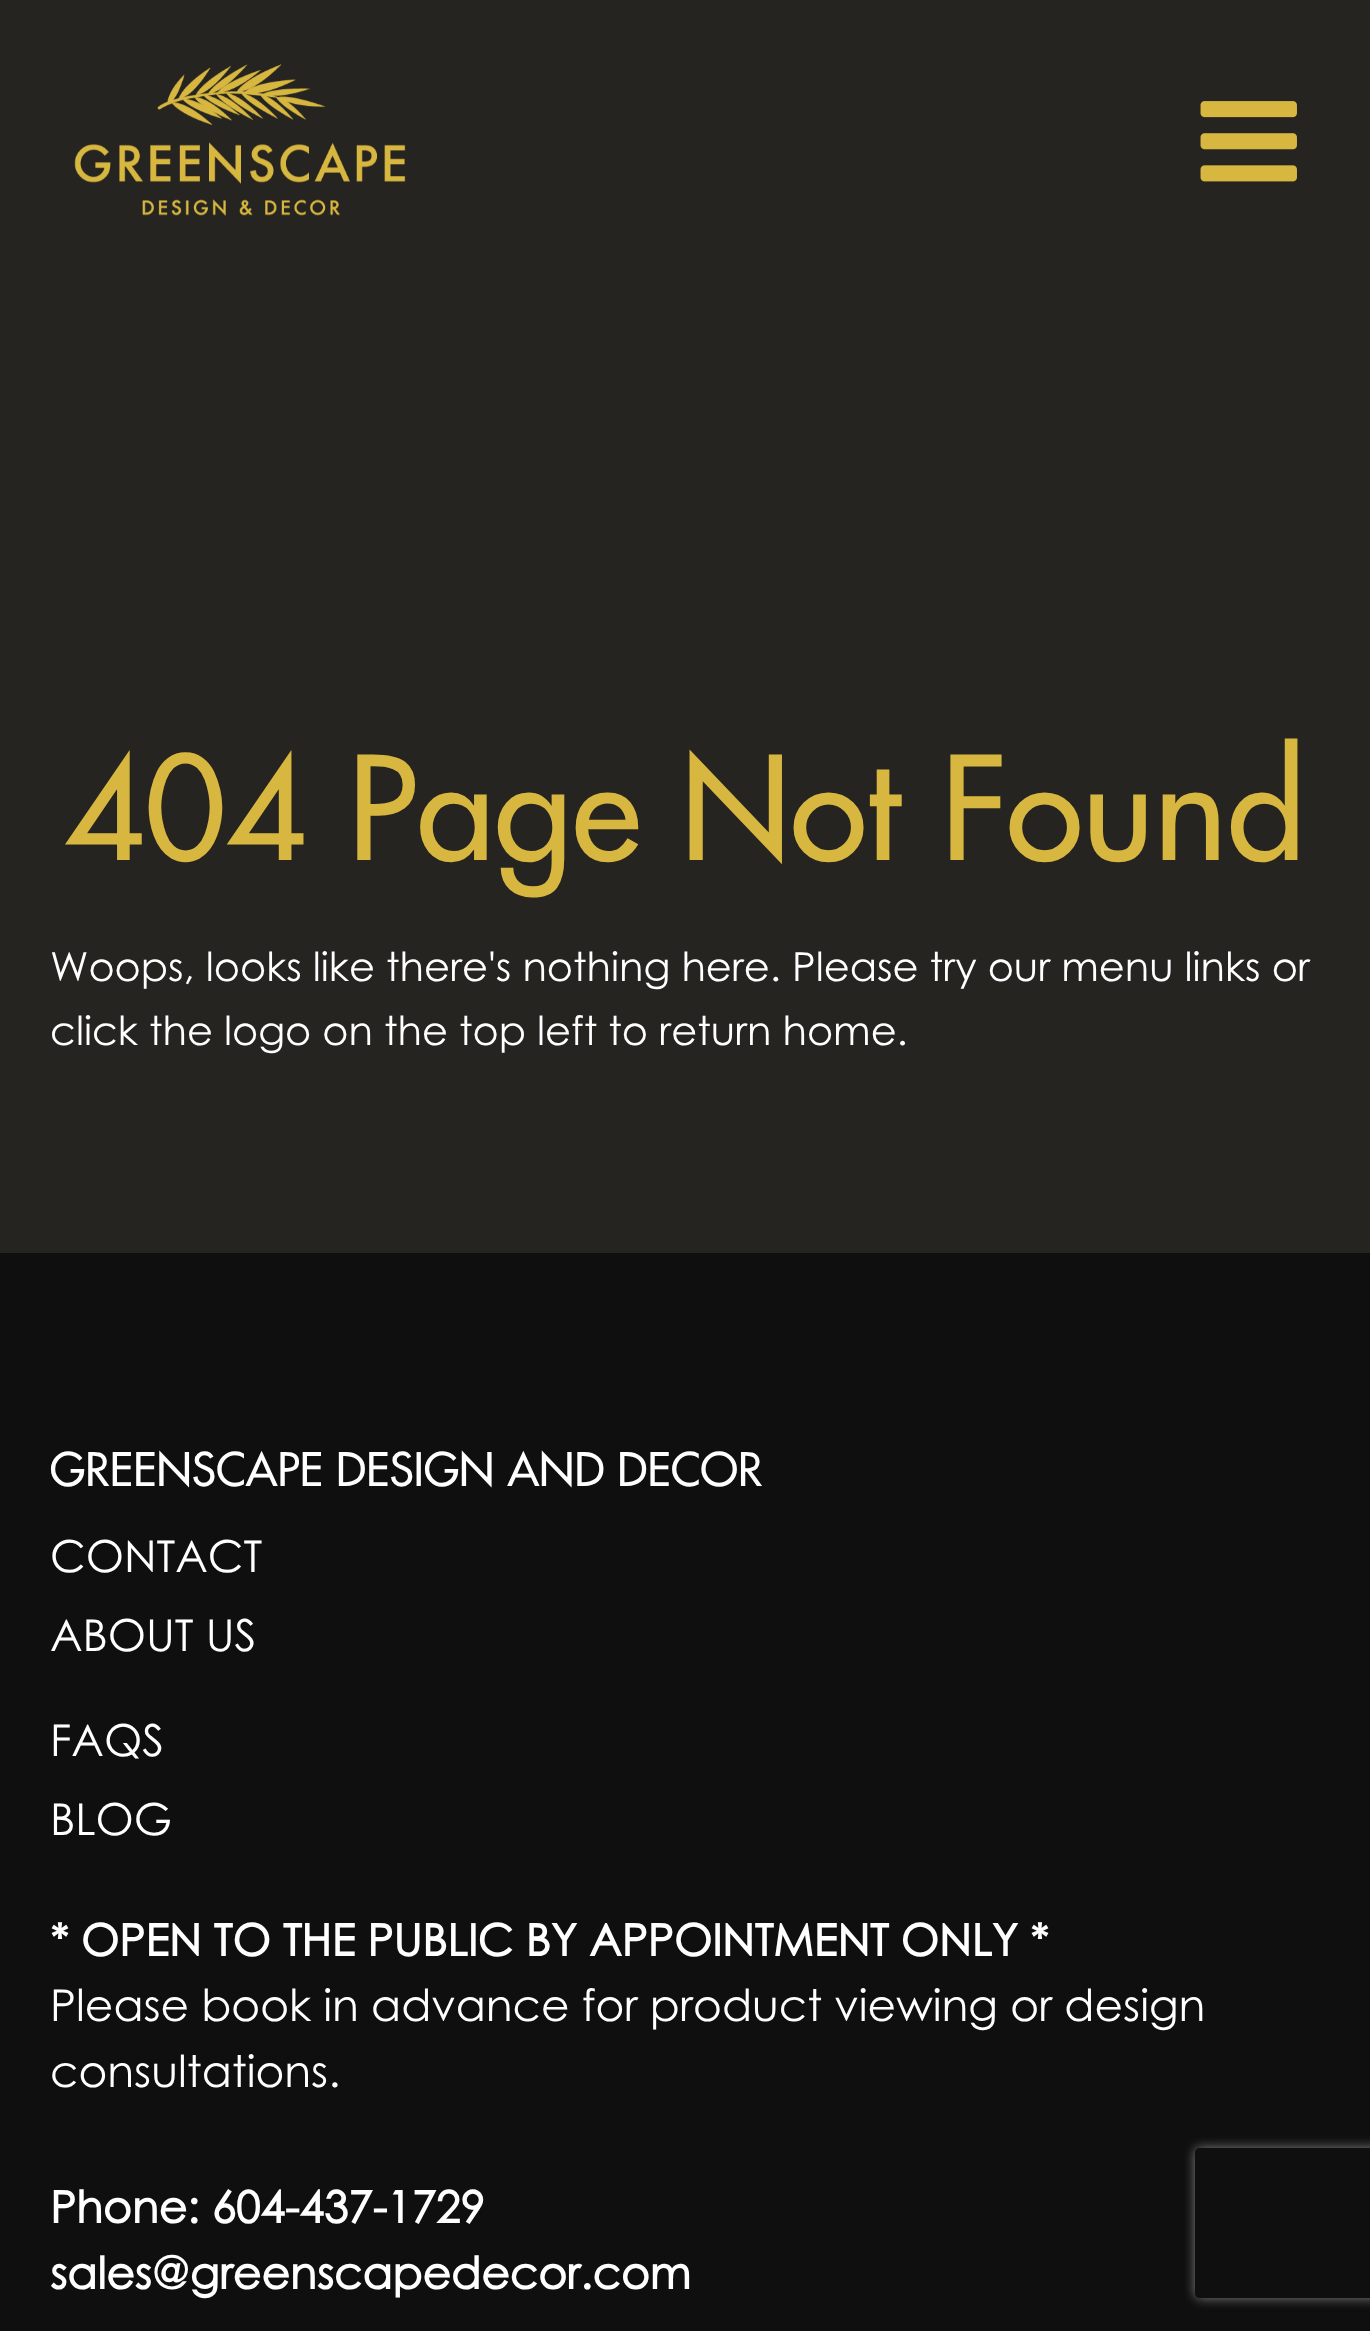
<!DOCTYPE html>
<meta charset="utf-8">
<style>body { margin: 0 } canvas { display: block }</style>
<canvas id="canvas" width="1370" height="2331"></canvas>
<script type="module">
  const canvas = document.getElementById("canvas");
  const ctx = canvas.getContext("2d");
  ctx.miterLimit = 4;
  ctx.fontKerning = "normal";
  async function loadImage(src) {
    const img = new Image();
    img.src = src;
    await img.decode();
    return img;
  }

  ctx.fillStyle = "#262421";
  ctx.fillRect(0, 0, 1370, 2331);
  ctx.drawImage(await loadImage("img1.png"), 74, 64, 332, 152);
  ctx.drawImage(await loadImage("img2.png"), 1200, 101, 97, 81);
  ctx.font = "500 140px Futura";
  ctx.fillStyle = "#d7b740";
  ctx.fillText("404 Page Not Found", 64, 860);
  ctx.font = "40px Century Gothic";
  ctx.fillStyle = "#ffffff";
  ctx.fillText("Woops, looks like there's nothing here. Please try our menu links or", 50, 981);
  ctx.fillText("click the logo on the top left to return home.", 50, 1045);
  ctx.fillStyle = "#0f0f0f";
  ctx.fillRect(0, 1253, 1370, 1078);
  ctx.font = "500 45px Futura";
  ctx.fillStyle = "#ffffff";
  ctx.fillText("GREENSCAPE DESIGN AND DECOR", 50, 1486);
  ctx.font = "44px Century Gothic";
  ctx.fillText("CONTACT", 50, 1572);
  ctx.fillText("ABOUT US", 50, 1651);
  ctx.fillText("FAQS", 50, 1756);
  ctx.fillText("BLOG", 50, 1835);
  ctx.font = "bold 44px Century Gothic";
  ctx.fillText("* OPEN TO THE PUBLIC BY APPOINTMENT ONLY *", 50, 1956);
  ctx.font = "44px Century Gothic";
  ctx.fillText("Please book in advance for product viewing or design", 50, 2021);
  ctx.fillText("consultations.", 50, 2087);
  ctx.font = "bold 44px Century Gothic";
  ctx.fillText("Phone: 604-437-1729", 50, 2223);
  ctx.fillText("sales@greenscapedecor.com", 50, 2289);
  ctx.save();
  ctx.beginPath();
  ctx.moveTo(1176, 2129);
  ctx.lineTo(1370, 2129);
  ctx.lineTo(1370, 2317);
  ctx.lineTo(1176, 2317);
  ctx.closePath();
  ctx.moveTo(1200, 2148);
  ctx.lineTo(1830, 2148);
  ctx.bezierCurveTo(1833, 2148, 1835, 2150, 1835, 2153);
  ctx.lineTo(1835, 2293);
  ctx.bezierCurveTo(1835, 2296, 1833, 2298, 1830, 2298);
  ctx.lineTo(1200, 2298);
  ctx.bezierCurveTo(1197, 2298, 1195, 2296, 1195, 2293);
  ctx.lineTo(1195, 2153);
  ctx.bezierCurveTo(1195, 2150, 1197, 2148, 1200, 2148);
  ctx.closePath();
  ctx.clip("evenodd");
  ctx.fillStyle = "#808080";
  ctx.filter = "blur(6px)";
  ctx.beginPath();
  ctx.roundRect(1195, 2148, 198, 150, 5);
  ctx.fill();
  ctx.filter = "none";
  ctx.restore();
</script>
